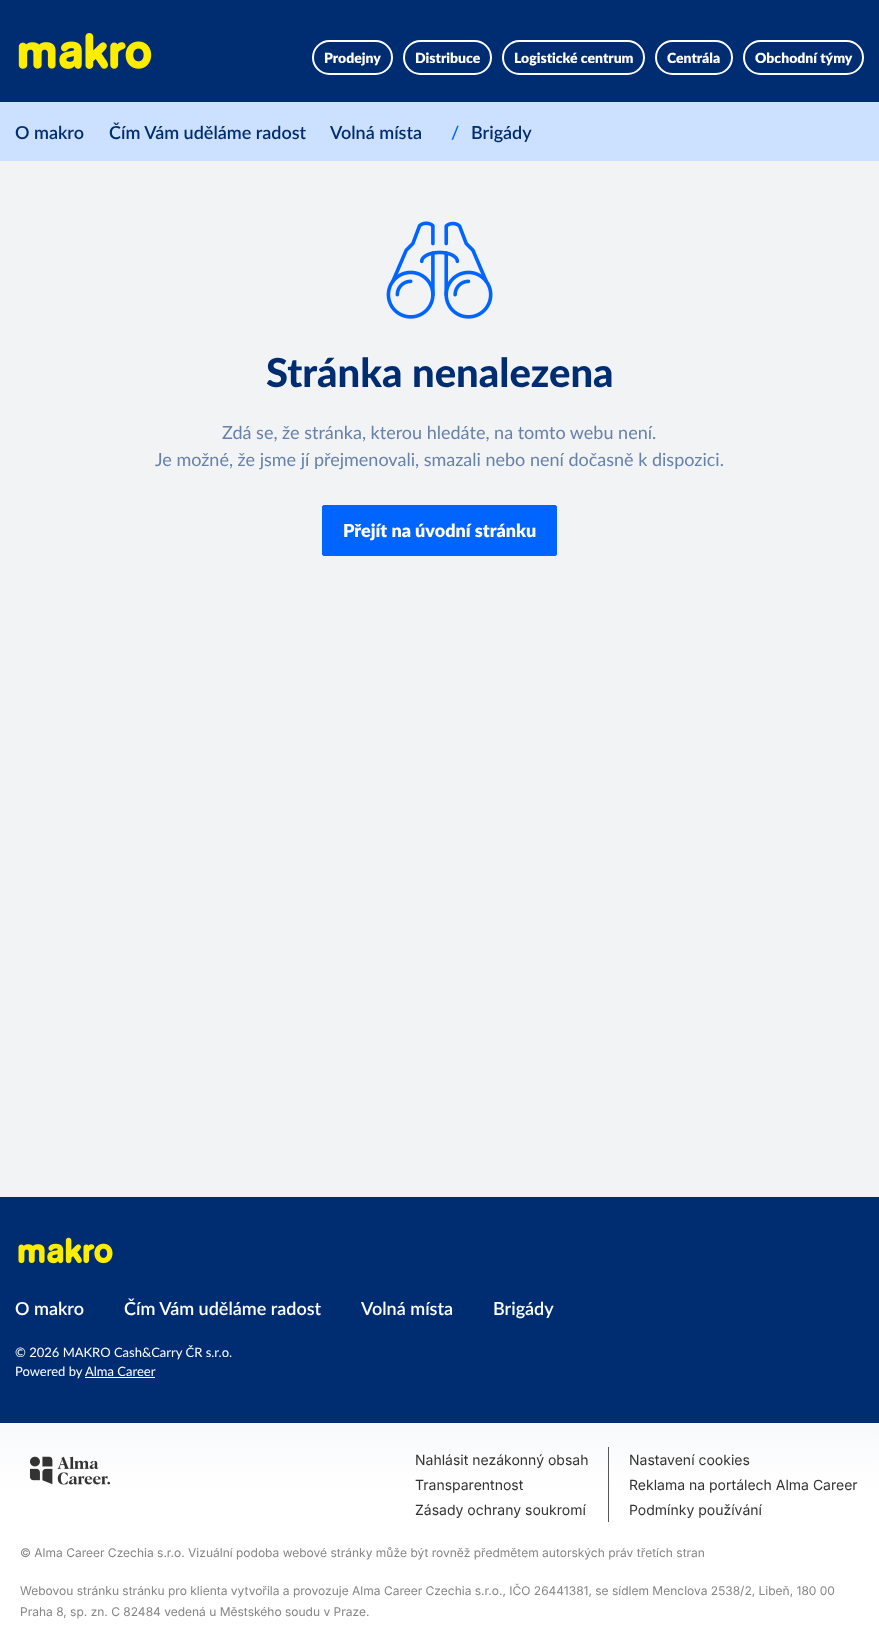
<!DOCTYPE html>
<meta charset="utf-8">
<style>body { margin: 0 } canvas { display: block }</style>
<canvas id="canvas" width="879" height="1647"></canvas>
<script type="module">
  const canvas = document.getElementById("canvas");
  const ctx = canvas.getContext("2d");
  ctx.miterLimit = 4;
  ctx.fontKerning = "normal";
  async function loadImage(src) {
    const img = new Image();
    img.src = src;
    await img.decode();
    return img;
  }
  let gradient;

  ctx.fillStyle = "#f2f3f5";
  ctx.fillRect(0, 0, 879, 1647);
  ctx.fillStyle = "#002d72";
  ctx.fillRect(0, 0, 879, 102);
  ctx.drawImage(await loadImage("img1.png"), 18, 33, 134, 36);
  ctx.beginPath();
  ctx.roundRect(313, 41, 79, 33, 16.5);
  ctx.strokeStyle = "#ffffff";
  ctx.lineWidth = 2;
  ctx.stroke();
  ctx.font = "900 14px 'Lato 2'";
  ctx.fillStyle = "#ffffff";
  ctx.fillText("Prodejny", 324, 63);
  ctx.beginPath();
  ctx.roundRect(404, 41, 87, 33, 16.5);
  ctx.stroke();
  ctx.fillText("Distribuce", 415, 63);
  ctx.beginPath();
  ctx.roundRect(503, 41, 141, 33, 16.5);
  ctx.stroke();
  ctx.fillText("Logistické centrum", 514, 63);
  ctx.beginPath();
  ctx.roundRect(656, 41, 76, 33, 16.5);
  ctx.stroke();
  ctx.fillText("Centrála", 667, 63);
  ctx.beginPath();
  ctx.roundRect(744, 41, 119, 33, 16.5);
  ctx.stroke();
  ctx.fillText("Obchodní týmy", 755, 63);
  ctx.fillStyle = "#cce0ff";
  ctx.fillRect(0, 102, 879, 59);
  ctx.font = "600 18px Lato";
  ctx.fillStyle = "#002d72";
  ctx.fillText("O makro", 15, 139);
  ctx.fillText("Čím Vám uděláme radost", 109, 139);
  ctx.fillText("Volná místa", 330, 139);
  ctx.fillStyle = "#0064fe";
  ctx.fillText("/", 451, 139);
  ctx.fillStyle = "#002d72";
  ctx.fillText("Brigády", 471, 139);
  ctx.drawImage(await loadImage("img2.png"), 386, 221, 107, 98);
  ctx.font = "900 40px Lato";
  ctx.fillText("Stránka nenalezena", 266, 387);
  ctx.font = "18px Lato";
  ctx.fillStyle = "#6681aa";
  ctx.fillText("Zdá se, že stránka, kterou hledáte, na tomto webu není.", 222, 439);
  ctx.fillText("Je možné, že jsme jí přejmenovali, smazali nebo není dočasně k dispozici.", 155, 466);
  ctx.fillStyle = "#0064fe";
  ctx.beginPath();
  ctx.roundRect(322.5, 505.5, 234, 50, 1.5);
  ctx.fill();
  ctx.strokeStyle = "#0064fe";
  ctx.lineWidth = 1;
  ctx.stroke();
  ctx.font = "900 18px 'Lato 2'";
  ctx.fillStyle = "#ffffff";
  ctx.fillText("Přejít na úvodní stránku", 343, 537);
  ctx.fillStyle = "#002d72";
  ctx.fillRect(0, 1197, 879, 226);
  ctx.drawImage(await loadImage("img3.png"), 18, 1237, 95, 27);
  ctx.font = "600 18px Lato";
  ctx.fillStyle = "#ffffff";
  ctx.fillText("O makro", 15, 1315);
  ctx.fillText("Čím Vám uděláme radost", 124, 1315);
  ctx.fillText("Volná místa", 361, 1315);
  ctx.fillText("Brigády", 493, 1315);
  ctx.font = "13px Lato";
  ctx.fillText("© 2026 MAKRO Cash&Carry ČR s.r.o.", 15, 1357);
  ctx.fillText("Powered by", 15, 1376);
  ctx.fillText("Alma Career", 85, 1376);
  ctx.fillRect(85, 1377, 70, 1);
  gradient = ctx.createLinearGradient(440, 1423, 440, 1647);
  gradient.addColorStop(0, "#f8f9fb");
  gradient.addColorStop(0.3, "#ffffff");
  gradient.addColorStop(1, "#ffffff");
  ctx.fillStyle = gradient;
  ctx.fillRect(0, 1423, 879, 224);
  ctx.drawImage(await loadImage("img4.png"), 29, 1456, 81, 29);
  ctx.fillStyle = "#565656";
  ctx.fillRect(608, 1447, 1, 75);
  ctx.font = "14px Inter";
  ctx.fillStyle = "#333333";
  ctx.fillText("Nahlásit nezákonný obsah", 415, 1465);
  ctx.fillText("Nastavení cookies", 629, 1465);
  ctx.fillText("Transparentnost", 415, 1490);
  ctx.fillText("Reklama na portálech Alma Career", 629, 1490);
  ctx.fillText("Zásady ochrany soukromí", 415, 1515);
  ctx.fillText("Podmínky používání", 629, 1515);
  ctx.font = "12px Inter";
  ctx.fillStyle = "#858585";
  ctx.fillText("© Alma Career Czechia s.r.o. Vizuální podoba webové stránky může být rovněž předmětem autorských práv třetích stran", 20, 1557);
  ctx.fillText("Webovou stránku stránku pro klienta vytvořila a provozuje Alma Career Czechia s.r.o., IČO 26441381, se sídlem Menclova 2538/2, Libeň, 180 00", 20, 1595);
  ctx.fillText("Praha 8, sp. zn. C 82484 vedená u Městského soudu v Praze.", 20, 1616);
</script>
